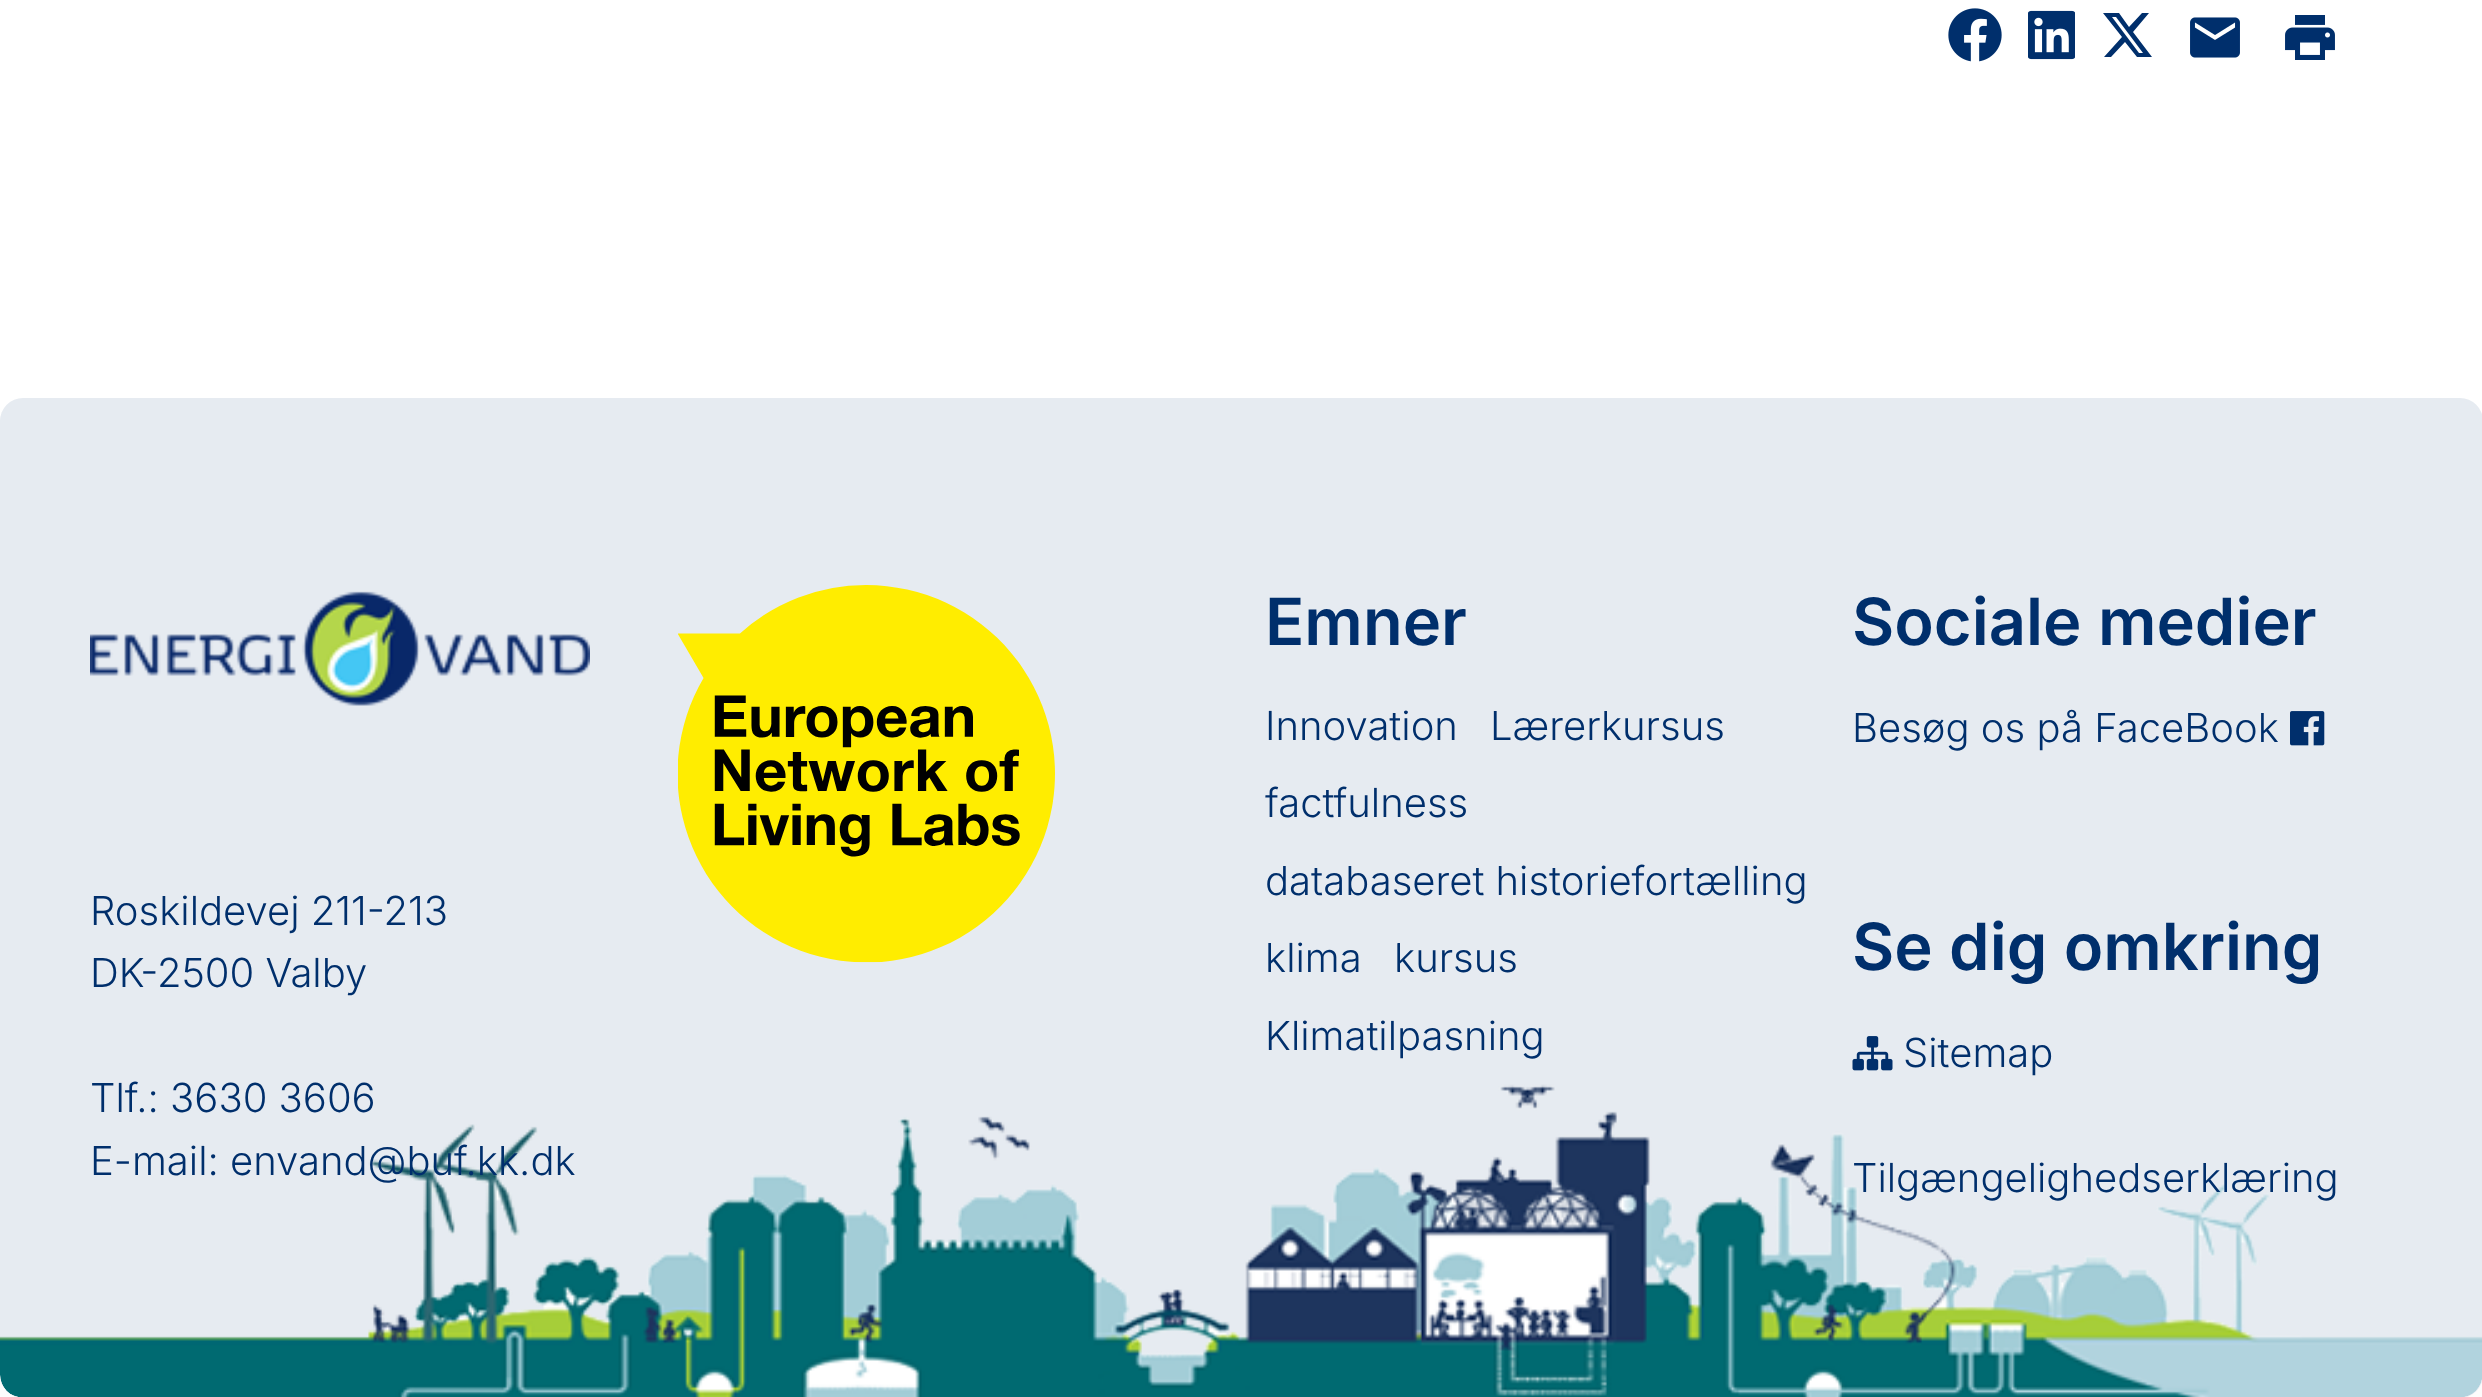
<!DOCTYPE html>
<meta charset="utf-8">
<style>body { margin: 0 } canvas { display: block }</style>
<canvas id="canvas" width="2482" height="1397"></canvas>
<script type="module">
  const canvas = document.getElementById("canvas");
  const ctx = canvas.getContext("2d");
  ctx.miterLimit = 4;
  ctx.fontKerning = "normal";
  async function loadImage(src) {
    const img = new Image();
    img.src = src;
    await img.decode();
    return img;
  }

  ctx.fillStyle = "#fcfcfc";
  ctx.fillRect(0, 0, 2482, 1397);
  ctx.fillStyle = "#ffffff";
  ctx.beginPath();
  ctx.roundRect(0, -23, 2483, 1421, 23);
  ctx.fill();
  ctx.drawImage(await loadImage("img1.png"), 1948, 8, 54, 54);
  ctx.drawImage(await loadImage("img2.png"), 2028, 10, 47, 50);
  ctx.fillStyle = "#002f6c";
  ctx.beginPath();
  ctx.moveTo(2142, 13);
  ctx.lineTo(2149, 13);
  ctx.lineTo(2133, 32);
  ctx.lineTo(2152, 57);
  ctx.lineTo(2137, 57);
  ctx.lineTo(2125, 42);
  ctx.lineTo(2111, 57);
  ctx.lineTo(2104, 57);
  ctx.lineTo(2122, 37);
  ctx.lineTo(2103, 13);
  ctx.lineTo(2119, 13);
  ctx.lineTo(2129, 27);
  ctx.closePath();
  ctx.moveTo(2139, 53);
  ctx.lineTo(2143, 53);
  ctx.lineTo(2116, 17);
  ctx.lineTo(2112, 17);
  ctx.closePath();
  ctx.fill();
  ctx.drawImage(await loadImage("img3.png"), 2190, 17, 50, 41);
  ctx.drawImage(await loadImage("img4.png"), 2285, 15, 50, 45);
  ctx.fillStyle = "#e6ebf1";
  ctx.beginPath();
  ctx.roundRect(0, 398, 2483, 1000, 23);
  ctx.fill();
  ctx.drawImage(await loadImage("img5.png"), 0, 1084, 2482, 313);
  ctx.drawImage(await loadImage("img6.png"), 90, 591, 500, 115);
  ctx.font = "300 40px Inter";
  ctx.fillStyle = "#002f6c";
  ctx.fillText("Roskildevej 211-213", 90, 925);
  ctx.fillText("DK-2500 Valby", 90, 987);
  ctx.fillText("Tlf.: 3630 3606", 90, 1112);
  ctx.fillText("E-mail: envand@buf.kk.dk", 90, 1175);
  ctx.drawImage(await loadImage("img7.png"), 678, 585, 377, 378);
  ctx.font = "600 65px Inter";
  ctx.fillText("Emner", 1265, 645);
  ctx.font = "300 40px Inter";
  ctx.fillText("Innovation", 1265, 740);
  ctx.fillText("Lærerkursus", 1490, 740);
  ctx.save();
  ctx.beginPath();
  ctx.roundRect(1265, 775, 223, 55, 23);
  ctx.clip();
  ctx.fillText("factfulness", 1265, 817);
  ctx.restore();
  ctx.fillText("databaseret historiefortælling", 1265, 895);
  ctx.fillText("klima", 1265, 972);
  ctx.save();
  ctx.beginPath();
  ctx.roundRect(1395, 930, 143, 55, 23);
  ctx.clip();
  ctx.fillText("kursus", 1394, 972);
  ctx.restore();
  ctx.fillText("Klimatilpasning", 1265, 1050);
  ctx.font = "600 65px Inter";
  ctx.fillText("Sociale medier", 1852, 645);
  ctx.font = "300 40px Inter";
  ctx.fillText("Besøg os på FaceBook", 1852, 742);
  ctx.drawImage(await loadImage("img8.png"), 2290, 711, 35, 35);
  ctx.font = "600 65px Inter";
  ctx.fillText("Se dig omkring", 1852, 970);
  ctx.drawImage(await loadImage("img9.png"), 1852, 1036, 41, 35);
  ctx.font = "300 40px Inter";
  ctx.fillText("Sitemap", 1903, 1067);
  ctx.fillText("Tilgængelighedserklæring", 1852, 1192);
</script>
